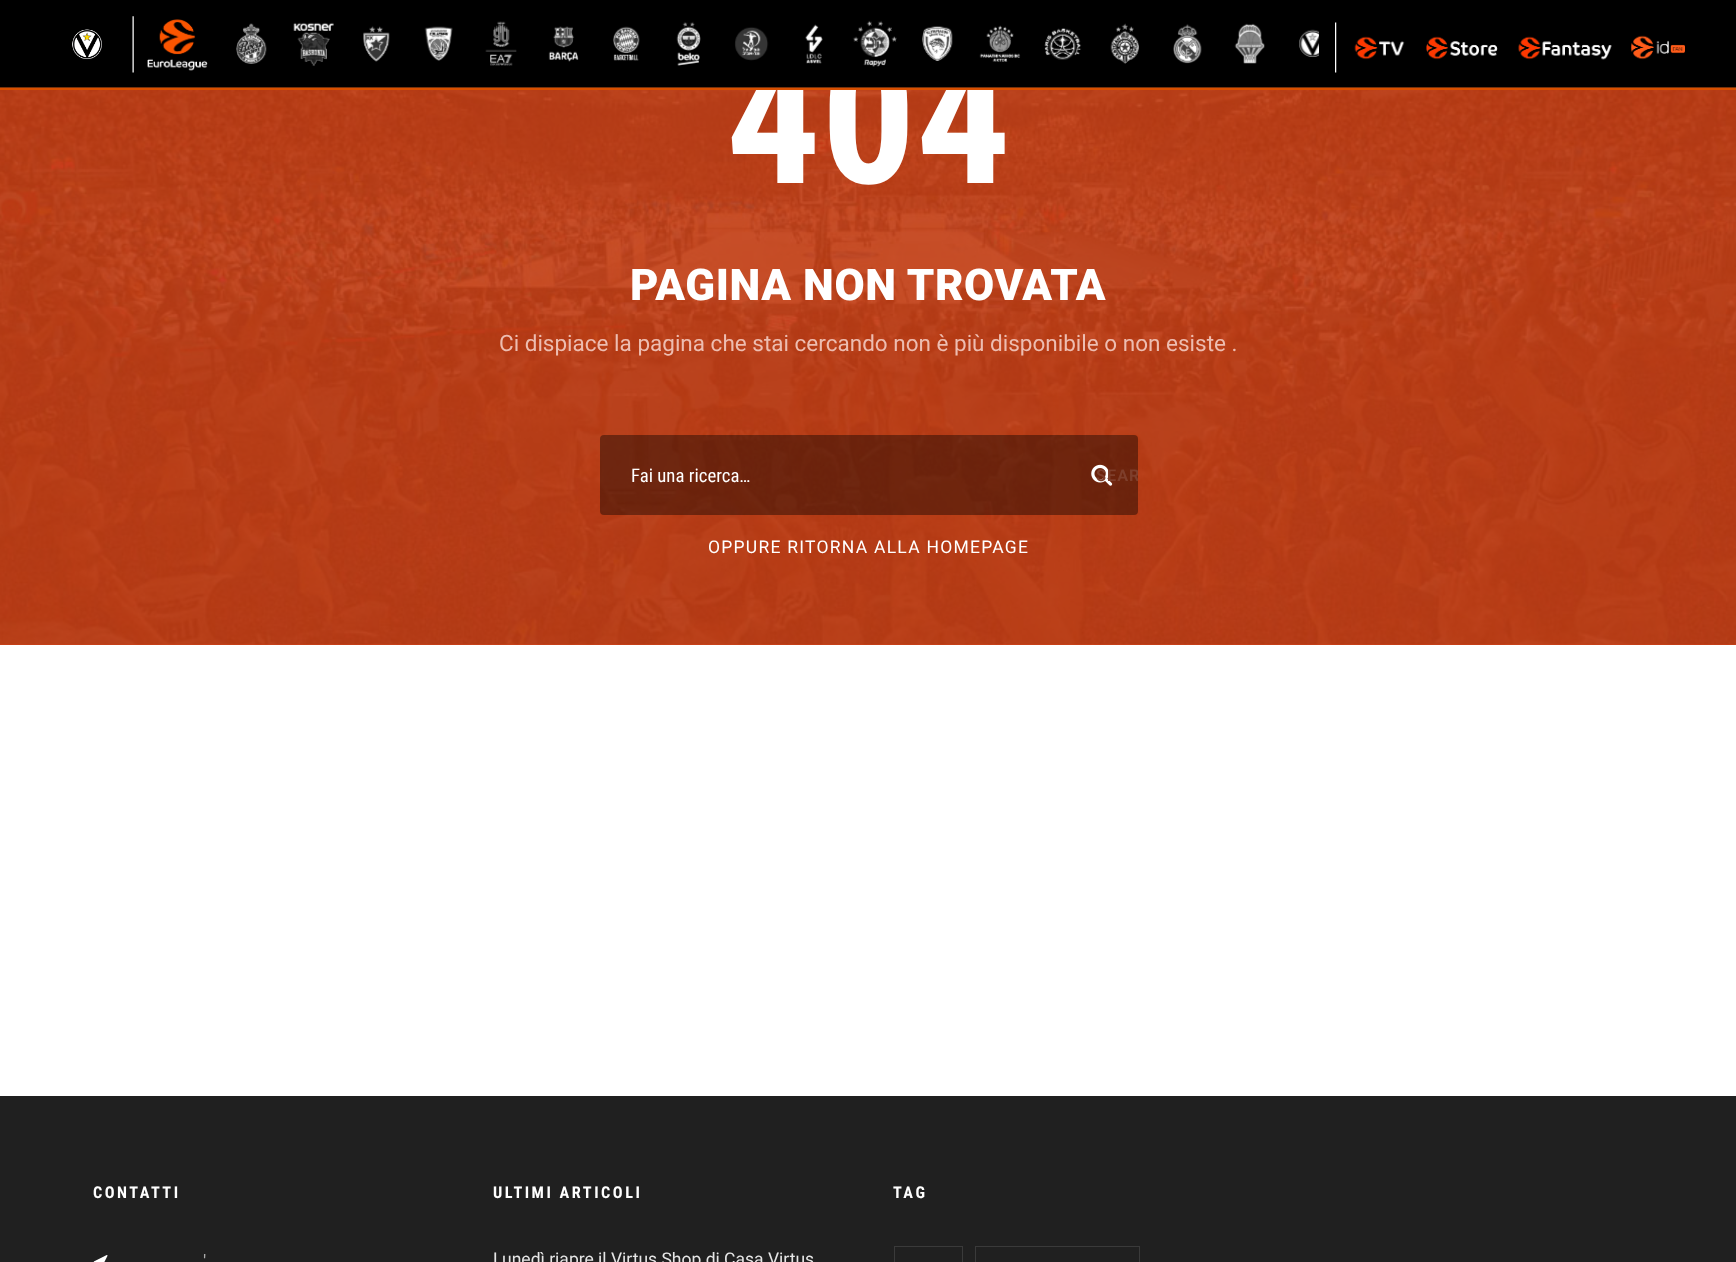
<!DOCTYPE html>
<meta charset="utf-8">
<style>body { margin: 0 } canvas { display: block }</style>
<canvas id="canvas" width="1736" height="1262"></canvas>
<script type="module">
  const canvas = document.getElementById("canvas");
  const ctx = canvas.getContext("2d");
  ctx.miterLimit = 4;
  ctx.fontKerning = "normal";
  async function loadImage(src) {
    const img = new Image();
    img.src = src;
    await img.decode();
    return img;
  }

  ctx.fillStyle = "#ffffff";
  ctx.fillRect(0, 0, 1736, 1262);
  ctx.fillStyle = "#ec4613";
  ctx.fillRect(0, 90, 1736, 555);
  ctx.drawImage(await loadImage("img3.png"), 0, 90, 1736, 555);
  ctx.font = "bold 188px Roboto Condensed";
  ctx.fillStyle = "#ffffff";
  ctx.fillText("404", 726, 183);
  ctx.drawImage(await loadImage("img1.png"), 0, 0, 1736, 90);
  ctx.letterSpacing = "0.6px";
  ctx.font = "900 43.75px Roboto";
  ctx.fillText("PAGINA NON TROVATA", 630, 300);
  ctx.letterSpacing = "0px";
  ctx.font = "22.5px Roboto";
  ctx.fillStyle = "#edbdb1";
  ctx.fillText("Ci dispiace la pagina che stai cercando non è più disponibile o non esiste .", 499, 351);
  ctx.fillStyle = "rgba(0, 0, 0, 0.4)";
  ctx.beginPath();
  ctx.roundRect(600, 435, 538, 80, 4);
  ctx.fill();
  ctx.font = "18.75px Roboto Condensed";
  ctx.fillStyle = "#ffffff";
  ctx.fillText("Fai una ricerca…", 631, 482);
  ctx.drawImage(await loadImage("img2.png"), 1091, 464, 22, 22);
  ctx.save();
  ctx.beginPath();
  ctx.rect(1055, 435, 83, 80);
  ctx.clip();
  ctx.letterSpacing = "1px";
  ctx.font = "bold 16.25px Roboto";
  ctx.fillStyle = "#7e3e2b";
  ctx.fillText("SEAR", 1096, 481);
  ctx.restore();
  ctx.letterSpacing = "1.25px";
  ctx.font = "17.5px Roboto";
  ctx.fillText("OPPURE RITORNA ALLA HOMEPAGE", 708, 553);
  ctx.fillStyle = "#202020";
  ctx.fillRect(0, 1096, 1736, 166);
  ctx.letterSpacing = "2.5px";
  ctx.font = "bold 16.25px Roboto Condensed";
  ctx.fillStyle = "#ffffff";
  ctx.fillText("CONTATTI", 93, 1198);
  ctx.drawImage(await loadImage("img4.png"), 93, 1255, 15, 7);
  ctx.letterSpacing = "0px";
  ctx.font = "18.75px Roboto";
  ctx.fillStyle = "#ababab";
  ctx.fillText("'", 203, 1268);
  ctx.letterSpacing = "2.5px";
  ctx.font = "bold 16.25px Roboto Condensed";
  ctx.fillStyle = "#ffffff";
  ctx.fillText("ULTIMI ARTICOLI", 493, 1198);
  ctx.letterSpacing = "0px";
  ctx.font = "17.5px Roboto";
  ctx.fillStyle = "#e6e6e6";
  ctx.fillText("Lunedì riapre il Virtus Shop di Casa Virtus", 493, 1265);
  ctx.letterSpacing = "2.5px";
  ctx.font = "bold 16.25px Roboto Condensed";
  ctx.fillStyle = "#ffffff";
  ctx.fillText("TAG", 893, 1198);
  ctx.strokeStyle = "#3a3a3a";
  ctx.strokeRect(894.5, 1246.5, 68, 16);
  ctx.strokeRect(975.5, 1246.5, 164, 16);
</script>
